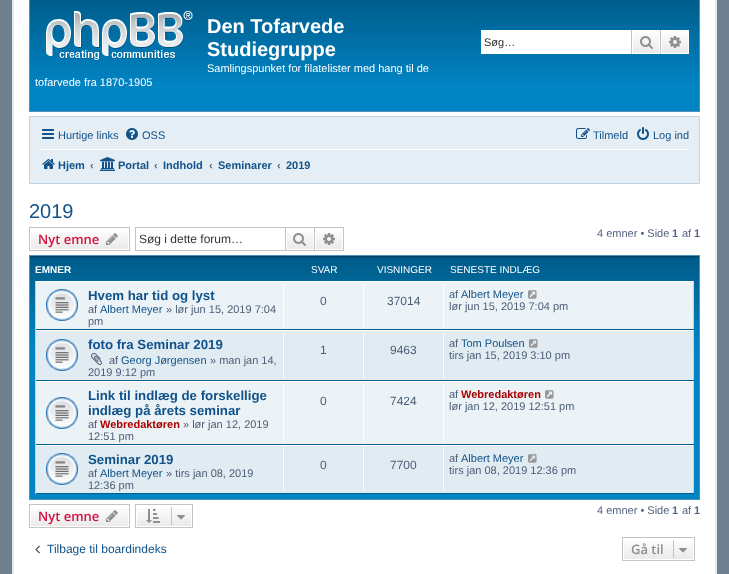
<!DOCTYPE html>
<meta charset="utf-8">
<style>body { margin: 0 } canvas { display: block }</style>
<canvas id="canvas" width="729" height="574"></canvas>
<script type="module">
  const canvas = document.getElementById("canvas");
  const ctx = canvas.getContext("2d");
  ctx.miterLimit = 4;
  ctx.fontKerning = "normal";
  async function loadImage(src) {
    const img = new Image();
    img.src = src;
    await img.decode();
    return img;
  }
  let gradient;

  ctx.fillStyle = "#708090";
  ctx.fillRect(0, 0, 729, 574);
  ctx.fillStyle = "#ffffff";
  ctx.beginPath();
  ctx.rect(13, -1, 703, 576);
  ctx.fill();
  ctx.strokeStyle = "#e6e9ed";
  ctx.lineWidth = 2;
  ctx.stroke();
  gradient = ctx.createLinearGradient(365, -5, 365, 111);
  gradient.addColorStop(0, "#003f5e");
  gradient.addColorStop(0.02, "#005c8a");
  gradient.addColorStop(0.79, "#0084c4");
  gradient.addColorStop(1, "#0084c4");
  ctx.fillStyle = gradient;
  ctx.fillRect(30, 0, 669, 111);
  ctx.strokeStyle = "#4f91b6";
  ctx.lineWidth = 1;
  ctx.strokeRect(29.5, -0.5, 670, 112);
  ctx.drawImage(await loadImage("img1.png"), 46, 11, 147, 50);
  ctx.font = "bold 20px Liberation Sans";
  ctx.fillStyle = "#ffffff";
  ctx.fillText("Den Tofarvede", 207, 33);
  ctx.fillText("Studiegruppe", 207, 56);
  ctx.font = "11px Liberation Sans";
  ctx.fillText("Samlingspunket for filatelister med hang til de", 207, 72);
  ctx.fillText("tofarvede fra 1870-1905", 35, 86);
  ctx.fillStyle = "#0075b0";
  ctx.filter = "blur(5px)";
  ctx.beginPath();
  ctx.rect(481, 30, 208, 24);
  ctx.fill();
  ctx.filter = "none";
  ctx.fillStyle = "#ffffff";
  ctx.fillRect(481, 30, 150, 24);
  ctx.fillStyle = "#333333";
  ctx.fillText("Søg…", 484, 46);
  gradient = ctx.createLinearGradient(646, 30, 646, 54);
  gradient.addColorStop(0, "#ffffff");
  gradient.addColorStop(1, "#e9e9e9");
  ctx.fillStyle = gradient;
  ctx.fillRect(633, 31, 26, 22);
  ctx.strokeStyle = "#ffffff";
  ctx.strokeRect(632.5, 30.5, 27, 23);
  ctx.fillStyle = "#c7c3bf";
  ctx.fillRect(660, 30, 1, 24);
  ctx.fillRect(631, 30, 1, 24);
  ctx.drawImage(await loadImage("img2.png"), 640, 36, 13, 13);
  gradient = ctx.createLinearGradient(675, 30, 675, 54);
  gradient.addColorStop(0, "#ffffff");
  gradient.addColorStop(1, "#e9e9e9");
  ctx.fillStyle = gradient;
  ctx.fillRect(662, 31, 26, 22);
  ctx.strokeRect(661.5, 30.5, 27, 23);
  ctx.drawImage(await loadImage("img3.png"), 669, 36, 12, 12);
  ctx.fillStyle = "#e5eef5";
  ctx.beginPath();
  ctx.rect(29.5, 116.5, 670, 67);
  ctx.fill();
  ctx.strokeStyle = "#bcd4e3";
  ctx.stroke();
  ctx.drawImage(await loadImage("img4.png"), 42, 129, 12, 10);
  ctx.fillStyle = "#105289";
  ctx.fillText("Hurtige links", 58, 139);
  ctx.drawImage(await loadImage("img5.png"), 126, 128, 12, 12);
  ctx.fillText("OSS", 142, 139);
  ctx.drawImage(await loadImage("img6.png"), 576, 128, 14, 11);
  ctx.fillText("Tilmeld", 593, 139);
  ctx.drawImage(await loadImage("img7.png"), 637, 127, 12, 13);
  ctx.fillText("Log ind", 653, 139);
  ctx.fillStyle = "#ffffff";
  ctx.fillRect(40, 149, 649, 1);
  ctx.drawImage(await loadImage("img8.png"), 42, 159, 13, 10);
  ctx.font = "bold 11px Liberation Sans";
  ctx.fillStyle = "#105289";
  ctx.fillText("Hjem", 58, 169);
  ctx.fillStyle = "#536482";
  ctx.fillText("‹", 90, 169);
  ctx.drawImage(await loadImage("img9.png"), 100, 157, 15, 14);
  ctx.fillStyle = "#105289";
  ctx.fillText("Portal", 118, 169);
  ctx.fillStyle = "#536482";
  ctx.fillText("‹", 154, 169);
  ctx.fillStyle = "#105289";
  ctx.fillText("Indhold", 163, 169);
  ctx.fillStyle = "#536482";
  ctx.fillText("‹", 209, 169);
  ctx.fillStyle = "#105289";
  ctx.fillText("Seminarer", 218, 169);
  ctx.fillStyle = "#536482";
  ctx.fillText("‹", 277, 169);
  ctx.fillStyle = "#105289";
  ctx.fillText("2019", 286, 169);
  ctx.font = "20px Liberation Sans";
  ctx.fillText("2019", 29, 218);
  gradient = ctx.createLinearGradient(80, 228, 80, 250);
  gradient.addColorStop(0, "#ffffff");
  gradient.addColorStop(1, "#e9e9e9");
  ctx.fillStyle = gradient;
  ctx.fillRect(31, 231, 97, 18);
  ctx.strokeStyle = "#c7c3bf";
  ctx.strokeRect(29.5, 227.5, 100, 23);
  ctx.font = "600 13px Open Sans";
  ctx.fillStyle = "#d31141";
  ctx.fillText("Nyt emne", 38, 244);
  ctx.drawImage(await loadImage("img10.png"), 106, 233, 12, 12);
  ctx.fillStyle = "#c7c3bf";
  ctx.fillRect(135, 227, 150, 1);
  ctx.fillRect(135, 250, 150, 1);
  ctx.fillRect(135, 227, 1, 24);
  ctx.font = "12px Liberation Sans";
  ctx.fillStyle = "#333333";
  ctx.fillText("Søg i dette forum…", 139, 243);
  gradient = ctx.createLinearGradient(300, 228, 300, 250);
  gradient.addColorStop(0, "#ffffff");
  gradient.addColorStop(1, "#e9e9e9");
  ctx.fillStyle = gradient;
  ctx.fillRect(287, 231, 26, 18);
  ctx.strokeRect(285.5, 227.5, 29, 23);
  ctx.drawImage(await loadImage("img11.png"), 293, 233, 13, 13);
  gradient = ctx.createLinearGradient(329, 228, 329, 250);
  gradient.addColorStop(0, "#ffffff");
  gradient.addColorStop(1, "#e9e9e9");
  ctx.fillStyle = gradient;
  ctx.fillRect(316, 231, 26, 18);
  ctx.fillStyle = "#c7c3bf";
  ctx.fillRect(315, 227, 29, 1);
  ctx.fillRect(343, 227, 1, 24);
  ctx.fillRect(315, 250, 29, 1);
  ctx.drawImage(await loadImage("img12.png"), 323, 233, 12, 12);
  ctx.font = "11px Liberation Sans";
  ctx.fillStyle = "#536482";
  ctx.fillText("4 emner • Side", 597, 237);
  ctx.font = "bold 11px Liberation Sans";
  ctx.fillText("1", 672, 237);
  ctx.font = "11px Liberation Sans";
  ctx.fillText("af", 682, 237);
  ctx.font = "bold 11px Liberation Sans";
  ctx.fillText("1", 694, 237);
  gradient = ctx.createLinearGradient(365, 256, 365, 499);
  gradient.addColorStop(0, "#003f5e");
  gradient.addColorStop(0.01, "#005c8a");
  gradient.addColorStop(0.38, "#0084c4");
  gradient.addColorStop(1, "#0084c4");
  ctx.fillStyle = gradient;
  ctx.fillRect(30, 256, 669, 243);
  ctx.strokeStyle = "#4f91b6";
  ctx.strokeRect(29.5, 255.5, 670, 244);
  ctx.font = "bold 10px Liberation Sans";
  ctx.fillStyle = "#ffffff";
  ctx.fillText("EMNER", 35, 273);
  ctx.font = "10px Liberation Sans";
  ctx.fillText("SVAR", 311, 273);
  ctx.fillText("VISNINGER", 377, 273);
  ctx.fillText("SENESTE INDLÆG", 450, 273);
  ctx.fillStyle = "#ecf3f7";
  ctx.fillRect(36, 282, 657, 47);
  ctx.fillStyle = "#ffffff";
  ctx.fillRect(35, 281, 659, 1);
  ctx.fillStyle = "#bcd4e3";
  ctx.fillRect(693, 281, 1, 49);
  ctx.fillStyle = "#00608f";
  ctx.fillRect(35, 329, 659, 1);
  ctx.fillStyle = "#bcd4e3";
  ctx.fillRect(35, 281, 1, 49);
  ctx.drawImage(await loadImage("img13.png"), 46, 289, 32, 32);
  ctx.font = "bold 13.25px Liberation Sans";
  ctx.fillStyle = "#105289";
  ctx.fillText("Hvem har tid og lyst", 88, 300);
  ctx.font = "11px Liberation Sans";
  ctx.fillStyle = "#4c5d77";
  ctx.fillText("af", 88, 313);
  ctx.fillStyle = "#105289";
  ctx.fillText("Albert Meyer", 100, 313);
  ctx.fillStyle = "#4c5d77";
  ctx.fillText("» lør jun 15, 2019 7:04", 166, 313);
  ctx.fillText("pm", 88, 325);
  ctx.fillStyle = "#ffffff";
  ctx.fillRect(283, 284, 1, 43);
  ctx.font = "12px Liberation Sans";
  ctx.fillStyle = "#4c5d77";
  ctx.fillText("0", 320, 305);
  ctx.fillStyle = "#ffffff";
  ctx.fillRect(363, 284, 1, 43);
  ctx.fillStyle = "#4c5d77";
  ctx.fillText("37014", 387, 305);
  ctx.fillStyle = "#ffffff";
  ctx.fillRect(443, 284, 1, 43);
  ctx.font = "11px Liberation Sans";
  ctx.fillStyle = "#4c5d77";
  ctx.fillText("af", 449, 298);
  ctx.fillStyle = "#105289";
  ctx.fillText("Albert Meyer", 461, 298);
  ctx.drawImage(await loadImage("img14.png"), 528, 290, 9, 9);
  ctx.fillStyle = "#4c5d77";
  ctx.fillText("lør jun 15, 2019 7:04 pm", 449, 310);
  ctx.fillStyle = "#e1ebf2";
  ctx.fillRect(36, 331, 657, 49);
  ctx.fillStyle = "#ffffff";
  ctx.fillRect(35, 330, 659, 1);
  ctx.fillStyle = "#bcd4e3";
  ctx.fillRect(693, 330, 1, 51);
  ctx.fillStyle = "#00608f";
  ctx.fillRect(35, 380, 659, 1);
  ctx.fillStyle = "#bcd4e3";
  ctx.fillRect(35, 330, 1, 51);
  ctx.drawImage(await loadImage("img15.png"), 46, 339, 32, 32);
  ctx.font = "bold 13.25px Liberation Sans";
  ctx.fillStyle = "#105289";
  ctx.fillText("foto fra Seminar 2019", 88, 349);
  ctx.drawImage(await loadImage("img16.png"), 91, 353, 11, 12);
  ctx.font = "11px Liberation Sans";
  ctx.fillStyle = "#4c5d77";
  ctx.fillText("af", 109, 364);
  ctx.fillStyle = "#105289";
  ctx.fillText("Georg Jørgensen", 121, 364);
  ctx.fillStyle = "#4c5d77";
  ctx.fillText("» man jan 14,", 210, 364);
  ctx.fillText("2019 9:12 pm", 88, 376);
  ctx.fillStyle = "#ffffff";
  ctx.fillRect(283, 333, 1, 45);
  ctx.font = "12px Liberation Sans";
  ctx.fillStyle = "#4c5d77";
  ctx.fillText("1", 320, 354);
  ctx.fillStyle = "#ffffff";
  ctx.fillRect(363, 333, 1, 45);
  ctx.fillStyle = "#4c5d77";
  ctx.fillText("9463", 390, 354);
  ctx.fillStyle = "#ffffff";
  ctx.fillRect(443, 333, 1, 45);
  ctx.font = "11px Liberation Sans";
  ctx.fillStyle = "#4c5d77";
  ctx.fillText("af", 449, 347);
  ctx.fillStyle = "#105289";
  ctx.fillText("Tom Poulsen", 461, 347);
  ctx.drawImage(await loadImage("img17.png"), 529, 339, 9, 9);
  ctx.fillStyle = "#4c5d77";
  ctx.fillText("tirs jan 15, 2019 3:10 pm", 449, 359);
  ctx.fillStyle = "#ecf3f7";
  ctx.fillRect(36, 382, 657, 62);
  ctx.fillStyle = "#ffffff";
  ctx.fillRect(35, 381, 659, 1);
  ctx.fillStyle = "#bcd4e3";
  ctx.fillRect(693, 381, 1, 64);
  ctx.fillStyle = "#00608f";
  ctx.fillRect(35, 444, 659, 1);
  ctx.fillStyle = "#bcd4e3";
  ctx.fillRect(35, 381, 1, 64);
  ctx.drawImage(await loadImage("img13.png"), 46, 397, 32, 32);
  ctx.font = "bold 13.25px Liberation Sans";
  ctx.fillStyle = "#105289";
  ctx.fillText("Link til indlæg de forskellige", 88, 400);
  ctx.fillText("indlæg på årets seminar", 88, 415);
  ctx.font = "11px Liberation Sans";
  ctx.fillStyle = "#4c5d77";
  ctx.fillText("af", 88, 428);
  ctx.font = "bold 11px Liberation Sans";
  ctx.fillStyle = "#aa0000";
  ctx.fillText("Webredaktøren", 100, 428);
  ctx.font = "11px Liberation Sans";
  ctx.fillStyle = "#4c5d77";
  ctx.fillText("» lør jan 12, 2019", 183, 428);
  ctx.fillText("12:51 pm", 88, 440);
  ctx.fillStyle = "#ffffff";
  ctx.fillRect(283, 384, 1, 58);
  ctx.font = "12px Liberation Sans";
  ctx.fillStyle = "#4c5d77";
  ctx.fillText("0", 320, 405);
  ctx.fillStyle = "#ffffff";
  ctx.fillRect(363, 384, 1, 58);
  ctx.fillStyle = "#4c5d77";
  ctx.fillText("7424", 390, 405);
  ctx.fillStyle = "#ffffff";
  ctx.fillRect(443, 384, 1, 58);
  ctx.font = "11px Liberation Sans";
  ctx.fillStyle = "#4c5d77";
  ctx.fillText("af", 449, 398);
  ctx.font = "bold 11px Liberation Sans";
  ctx.fillStyle = "#aa0000";
  ctx.fillText("Webredaktøren", 461, 398);
  ctx.drawImage(await loadImage("img14.png"), 545, 390, 9, 9);
  ctx.font = "11px Liberation Sans";
  ctx.fillStyle = "#4c5d77";
  ctx.fillText("lør jan 12, 2019 12:51 pm", 449, 410);
  ctx.fillStyle = "#e1ebf2";
  ctx.fillRect(36, 446, 657, 47);
  ctx.fillStyle = "#ffffff";
  ctx.fillRect(35, 445, 659, 1);
  ctx.fillStyle = "#bcd4e3";
  ctx.fillRect(693, 445, 1, 49);
  ctx.fillStyle = "#00608f";
  ctx.fillRect(35, 493, 659, 1);
  ctx.fillStyle = "#bcd4e3";
  ctx.fillRect(35, 445, 1, 49);
  ctx.drawImage(await loadImage("img15.png"), 46, 453, 32, 32);
  ctx.font = "bold 13.25px Liberation Sans";
  ctx.fillStyle = "#105289";
  ctx.fillText("Seminar 2019", 88, 464);
  ctx.font = "11px Liberation Sans";
  ctx.fillStyle = "#4c5d77";
  ctx.fillText("af", 88, 477);
  ctx.fillStyle = "#105289";
  ctx.fillText("Albert Meyer", 100, 477);
  ctx.fillStyle = "#4c5d77";
  ctx.fillText("» tirs jan 08, 2019", 166, 477);
  ctx.fillText("12:36 pm", 88, 489);
  ctx.fillStyle = "#ffffff";
  ctx.fillRect(283, 448, 1, 43);
  ctx.font = "12px Liberation Sans";
  ctx.fillStyle = "#4c5d77";
  ctx.fillText("0", 320, 469);
  ctx.fillStyle = "#ffffff";
  ctx.fillRect(363, 448, 1, 43);
  ctx.fillStyle = "#4c5d77";
  ctx.fillText("7700", 390, 469);
  ctx.fillStyle = "#ffffff";
  ctx.fillRect(443, 448, 1, 43);
  ctx.font = "11px Liberation Sans";
  ctx.fillStyle = "#4c5d77";
  ctx.fillText("af", 449, 462);
  ctx.fillStyle = "#105289";
  ctx.fillText("Albert Meyer", 461, 462);
  ctx.drawImage(await loadImage("img17.png"), 528, 454, 9, 9);
  ctx.fillStyle = "#4c5d77";
  ctx.fillText("tirs jan 08, 2019 12:36 pm", 449, 474);
  gradient = ctx.createLinearGradient(80, 505, 80, 527);
  gradient.addColorStop(0, "#ffffff");
  gradient.addColorStop(1, "#e9e9e9");
  ctx.fillStyle = gradient;
  ctx.fillRect(31, 508, 97, 18);
  ctx.strokeStyle = "#c7c3bf";
  ctx.strokeRect(29.5, 504.5, 100, 23);
  ctx.font = "600 13px Open Sans";
  ctx.fillStyle = "#d31141";
  ctx.fillText("Nyt emne", 38, 521);
  ctx.drawImage(await loadImage("img10.png"), 106, 510, 12, 12);
  gradient = ctx.createLinearGradient(164, 505, 164, 527);
  gradient.addColorStop(0, "#ffffff");
  gradient.addColorStop(1, "#e9e9e9");
  ctx.fillStyle = gradient;
  ctx.fillRect(137, 508, 54, 18);
  ctx.strokeRect(135.5, 504.5, 57, 23);
  ctx.drawImage(await loadImage("img18.png"), 146, 509, 14, 14);
  ctx.fillStyle = "#c7c3bf";
  ctx.fillRect(171, 507, 1, 18);
  ctx.drawImage(await loadImage("img19.png"), 177, 515, 8, 5);
  ctx.font = "11px Liberation Sans";
  ctx.fillStyle = "#536482";
  ctx.fillText("4 emner • Side", 597, 514);
  ctx.font = "bold 11px Liberation Sans";
  ctx.fillText("1", 672, 514);
  ctx.font = "11px Liberation Sans";
  ctx.fillText("af", 682, 514);
  ctx.font = "bold 11px Liberation Sans";
  ctx.fillText("1", 694, 514);
  ctx.drawImage(await loadImage("img20.png"), 35, 545, 5, 9);
  ctx.font = "12px Liberation Sans";
  ctx.fillStyle = "#105289";
  ctx.fillText("Tilbage til boardindeks", 47, 553);
  gradient = ctx.createLinearGradient(659, 538, 659, 560);
  gradient.addColorStop(0, "#ffffff");
  gradient.addColorStop(1, "#e9e9e9");
  ctx.fillStyle = gradient;
  ctx.fillRect(624, 541, 69, 18);
  ctx.strokeRect(622.5, 537.5, 72, 23);
  ctx.font = "600 13px Open Sans";
  ctx.fillStyle = "#8f8f8f";
  ctx.fillText("Gå til", 631, 554);
  ctx.fillStyle = "#c7c3bf";
  ctx.fillRect(673, 540, 1, 18);
  ctx.drawImage(await loadImage("img19.png"), 679, 548, 8, 5);
</script>
